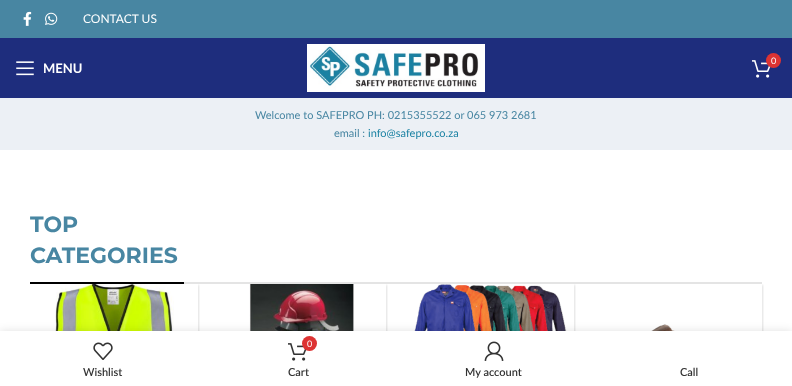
<!DOCTYPE html>
<meta charset="utf-8">
<style>body { margin: 0 } canvas { display: block }</style>
<canvas id="canvas" width="792" height="386"></canvas>
<script type="module">
  const canvas = document.getElementById("canvas");
  const ctx = canvas.getContext("2d");
  ctx.miterLimit = 4;
  ctx.fontKerning = "normal";
  async function loadImage(src) {
    const img = new Image();
    img.src = src;
    await img.decode();
    return img;
  }

  ctx.fillStyle = "#ffffff";
  ctx.fillRect(0, 0, 792, 386);
  ctx.fillStyle = "#4886a2";
  ctx.fillRect(0, 0, 792, 38);
  ctx.drawImage(await loadImage("img1.png"), 23, 11, 9, 15);
  ctx.drawImage(await loadImage("img2.png"), 45, 12, 13, 13);
  ctx.font = "12px Lato";
  ctx.fillStyle = "#ffffff";
  ctx.fillText("CONTACT US", 83, 23);
  ctx.fillStyle = "#1e2d7d";
  ctx.fillRect(0, 38, 792, 60);
  ctx.drawImage(await loadImage("img3.png"), 307, 44, 178, 48);
  ctx.drawImage(await loadImage("img4.png"), 752, 60, 19, 18);
  ctx.fillStyle = "#dd3333";
  ctx.beginPath();
  ctx.arc(773.5, 60.5, 7.5, 0, Math.PI * 2);
  ctx.fill();
  ctx.font = "9px Lato";
  ctx.fillStyle = "#ffffff";
  ctx.fillText("0", 771, 64);
  ctx.drawImage(await loadImage("img5.png"), 16, 61, 18, 15);
  ctx.font = "bold 13px Lato";
  ctx.fillText("MENU", 43, 73);
  ctx.fillStyle = "#ecf0f5";
  ctx.fillRect(0, 98, 792, 52);
  ctx.font = "11px Lato";
  ctx.fillStyle = "#4886a2";
  ctx.fillText("Welcome to SAFEPRO PH: 0215355522 or 065 973 2681", 255, 119);
  ctx.fillText("email :", 334, 137);
  ctx.fillStyle = "#1b82a3";
  ctx.fillText("info@safepro.co.za", 368, 137);
  ctx.fillStyle = "#e4e4e4";
  ctx.fillRect(184, 282, 578, 2);
  ctx.fillStyle = "#000000";
  ctx.fillRect(30, 282, 154, 2);
  ctx.font = "bold 22px Montserrat";
  ctx.fillStyle = "#4886a2";
  ctx.fillText("TOP", 30, 232);
  ctx.fillText("CATEGORIES", 30, 263);
  ctx.save();
  ctx.beginPath();
  ctx.rect(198, 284, 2, 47);
  ctx.clip();
  ctx.fillStyle = "rgba(0, 0, 0, 0.12)";
  ctx.filter = "blur(1px)";
  ctx.beginPath();
  ctx.rect(31, 285, 168, 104);
  ctx.fill();
  ctx.filter = "none";
  ctx.restore();
  ctx.drawImage(await loadImage("img6.png"), 55, 284, 119, 47);
  ctx.save();
  ctx.beginPath();
  ctx.rect(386, 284, 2, 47);
  ctx.clip();
  ctx.fillStyle = "rgba(0, 0, 0, 0.12)";
  ctx.filter = "blur(1px)";
  ctx.beginPath();
  ctx.rect(219, 285, 168, 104);
  ctx.fill();
  ctx.filter = "none";
  ctx.restore();
  ctx.drawImage(await loadImage("img7.png"), 249, 284, 105, 47);
  ctx.save();
  ctx.beginPath();
  ctx.rect(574, 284, 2, 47);
  ctx.clip();
  ctx.fillStyle = "rgba(0, 0, 0, 0.12)";
  ctx.filter = "blur(1px)";
  ctx.beginPath();
  ctx.rect(407, 285, 168, 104);
  ctx.fill();
  ctx.filter = "none";
  ctx.restore();
  ctx.drawImage(await loadImage("img8.png"), 411, 284, 158, 47);
  ctx.save();
  ctx.beginPath();
  ctx.rect(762, 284, 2, 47);
  ctx.clip();
  ctx.fillStyle = "rgba(0, 0, 0, 0.12)";
  ctx.filter = "blur(1px)";
  ctx.beginPath();
  ctx.rect(595, 285, 168, 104);
  ctx.fill();
  ctx.filter = "none";
  ctx.restore();
  ctx.drawImage(await loadImage("img9.png"), 651, 324, 24, 7);
  ctx.fillStyle = "rgba(0, 0, 0, 0.12)";
  ctx.filter = "blur(4.5px)";
  ctx.beginPath();
  ctx.rect(0, 331, 792, 55);
  ctx.fill();
  ctx.filter = "none";
  ctx.fillStyle = "#ffffff";
  ctx.fillRect(0, 331, 792, 55);
  ctx.drawImage(await loadImage("img10.png"), 93, 342, 20, 18);
  ctx.font = "600 11px Lato";
  ctx.fillStyle = "#333333";
  ctx.fillText("Wishlist", 83, 376);
  ctx.drawImage(await loadImage("img11.png"), 288, 343, 19, 18);
  ctx.fillStyle = "#dd3333";
  ctx.beginPath();
  ctx.arc(309.5, 343.5, 7.5, 0, Math.PI * 2);
  ctx.fill();
  ctx.font = "9px Lato";
  ctx.fillStyle = "#ffffff";
  ctx.fillText("0", 307, 347);
  ctx.font = "600 11px Lato";
  ctx.fillStyle = "#333333";
  ctx.fillText("Cart", 288, 376);
  ctx.drawImage(await loadImage("img12.png"), 484, 341, 20, 20);
  ctx.fillText("My account", 465, 376);
  ctx.fillText("Call", 680, 376);
</script>
